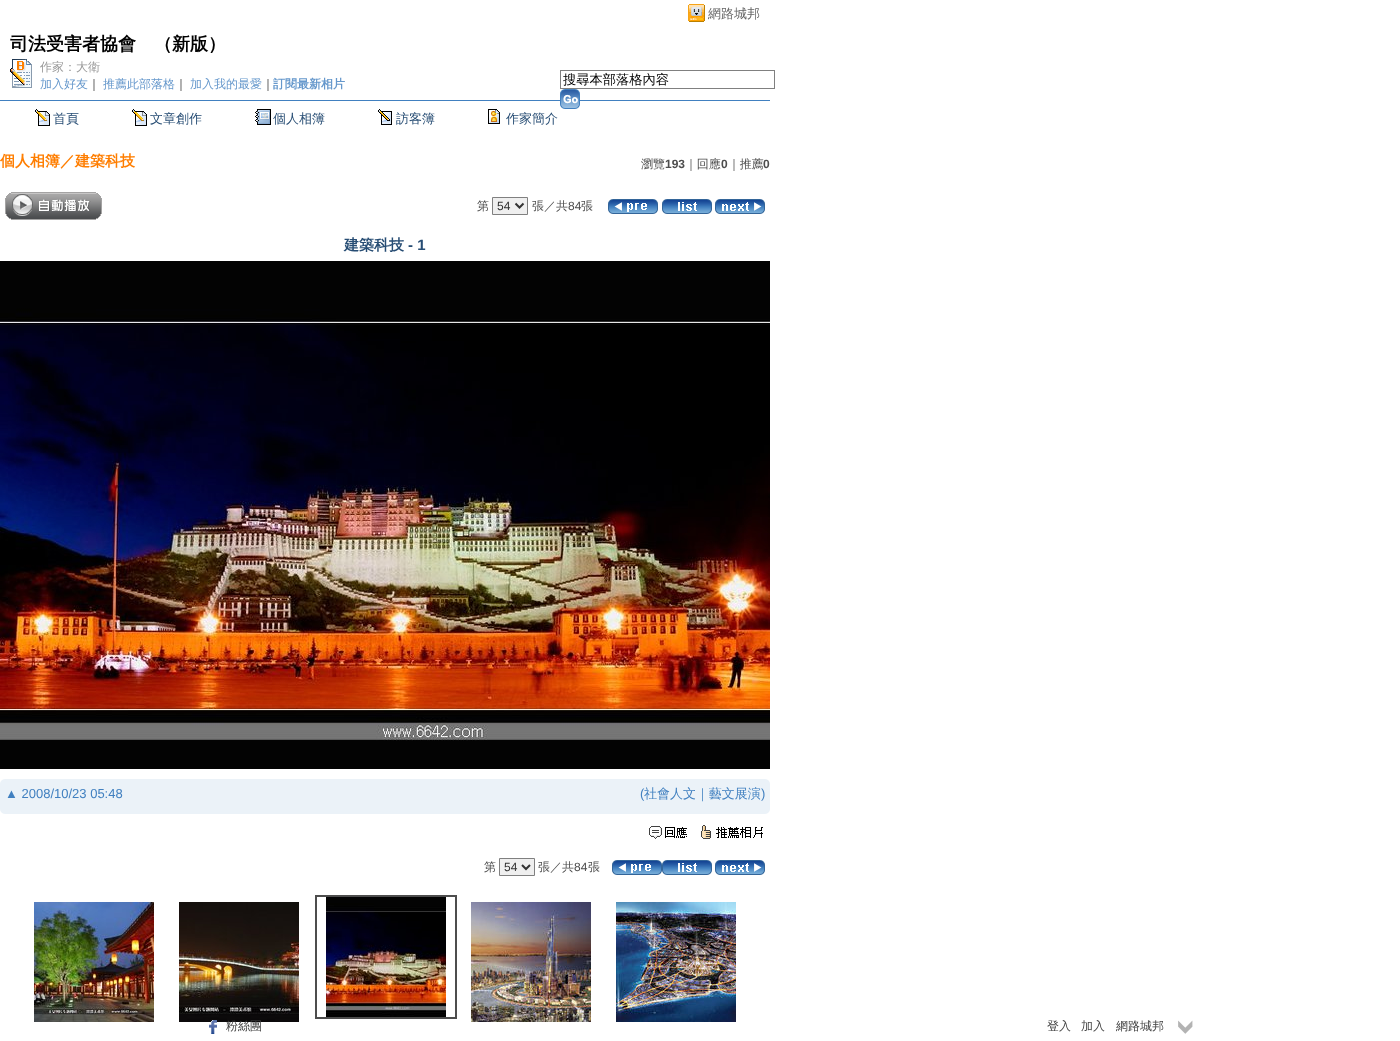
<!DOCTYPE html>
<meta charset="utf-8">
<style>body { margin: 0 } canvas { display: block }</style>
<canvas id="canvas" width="1400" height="1041"></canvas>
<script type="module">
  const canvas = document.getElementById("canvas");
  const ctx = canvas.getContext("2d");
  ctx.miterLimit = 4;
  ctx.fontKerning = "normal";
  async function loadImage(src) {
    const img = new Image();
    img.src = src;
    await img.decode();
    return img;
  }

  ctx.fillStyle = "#ffffff";
  ctx.fillRect(0, 0, 1400, 1041);
  ctx.drawImage(await loadImage("img1.png"), 688, 4, 17, 18);
  ctx.font = "500 13px WenQuanYi Zen Hei";
  ctx.fillStyle = "#666666";
  ctx.fillText("網路城邦", 708, 18);
  ctx.font = "bold 18px WenQuanYi Zen Hei";
  ctx.fillStyle = "#000000";
  ctx.fillText("司法受害者協會", 10, 50);
  ctx.fillText("（新版）", 154, 50);
  ctx.drawImage(await loadImage("img2.png"), 10, 59, 22, 29);
  ctx.font = "500 12px WenQuanYi Zen Hei";
  ctx.fillStyle = "#999999";
  ctx.fillText("作家：大衛", 40, 71);
  ctx.fillStyle = "#6698cc";
  ctx.fillText("加入好友", 40, 88);
  ctx.fillStyle = "#333333";
  ctx.fillText("｜", 88, 88);
  ctx.fillStyle = "#6698cc";
  ctx.fillText("推薦此部落格", 103, 88);
  ctx.fillStyle = "#333333";
  ctx.fillText("｜", 175, 88);
  ctx.fillStyle = "#6698cc";
  ctx.fillText("加入我的最愛", 190, 88);
  ctx.fillStyle = "#333333";
  ctx.fillText("｜", 262, 88);
  ctx.font = "bold 12px WenQuanYi Zen Hei";
  ctx.fillStyle = "#6698cc";
  ctx.fillText("訂閱最新相片", 273, 88);
  ctx.strokeStyle = "#808080";
  ctx.strokeRect(560.5, 70.5, 214, 18);
  ctx.font = "500 13.25px WenQuanYi Zen Hei";
  ctx.fillStyle = "#000000";
  ctx.fillText("搜尋本部落格內容", 563, 84);
  ctx.fillStyle = "#4180c0";
  ctx.fillRect(0, 100, 770, 1);
  ctx.drawImage(await loadImage("img3.png"), 560, 89, 20, 20);
  ctx.drawImage(await loadImage("img4.png"), 35, 109, 15, 17);
  ctx.font = "500 13px WenQuanYi Zen Hei";
  ctx.fillStyle = "#274d74";
  ctx.fillText("首頁", 53, 123);
  ctx.drawImage(await loadImage("img4.png"), 132, 109, 15, 17);
  ctx.fillText("文章創作", 150, 123);
  ctx.drawImage(await loadImage("img5.png"), 255, 109, 16, 16);
  ctx.fillText("個人相簿", 273, 123);
  ctx.drawImage(await loadImage("img6.png"), 378, 109, 14, 16);
  ctx.fillText("訪客簿", 396, 123);
  ctx.drawImage(await loadImage("img7.png"), 488, 109, 12, 15);
  ctx.fillText("作家簡介", 506, 123);
  ctx.font = "bold 15px WenQuanYi Zen Hei";
  ctx.fillStyle = "#ff7e00";
  ctx.fillText("個人相簿／建築科技", 0, 166);
  ctx.font = "500 12px WenQuanYi Zen Hei";
  ctx.fillStyle = "#4d4d4d";
  ctx.fillText("瀏覽", 641, 168);
  ctx.font = "bold 12px Liberation Sans";
  ctx.fillText("193", 665, 168);
  ctx.font = "500 12px WenQuanYi Zen Hei";
  ctx.fillText("｜回應", 685, 168);
  ctx.font = "bold 12px Liberation Sans";
  ctx.fillText("0", 721, 168);
  ctx.font = "500 12px WenQuanYi Zen Hei";
  ctx.fillText("｜推薦", 728, 168);
  ctx.font = "bold 12px Liberation Sans";
  ctx.fillText("0", 763, 168);
  ctx.drawImage(await loadImage("img8.png"), 5, 192, 97, 28);
  ctx.font = "500 12px WenQuanYi Zen Hei";
  ctx.fillText("第", 477, 210);
  ctx.fillStyle = "#efefef";
  ctx.beginPath();
  ctx.rect(492.5, 197.5, 35, 17);
  ctx.fill();
  ctx.stroke();
  ctx.beginPath();
  ctx.moveTo(515.5, 203.5);
  ctx.lineTo(519.5, 207.5);
  ctx.lineTo(523.5, 203.5);
  ctx.strokeStyle = "#333333";
  ctx.lineWidth = 2;
  ctx.stroke();
  ctx.font = "12px Liberation Sans";
  ctx.fillStyle = "#333333";
  ctx.fillText("54", 497, 210);
  ctx.font = "500 12px WenQuanYi Zen Hei";
  ctx.fillStyle = "#4d4d4d";
  ctx.fillText("張／共", 532, 210);
  ctx.font = "12px Liberation Sans";
  ctx.fillText("84", 568, 210);
  ctx.font = "500 12px WenQuanYi Zen Hei";
  ctx.fillText("張", 581, 210);
  ctx.drawImage(await loadImage("img9.png"), 608, 199, 50, 15);
  ctx.drawImage(await loadImage("img10.png"), 662, 199, 50, 15);
  ctx.drawImage(await loadImage("img11.png"), 715, 199, 50, 15);
  ctx.font = "bold 15px WenQuanYi Zen Hei";
  ctx.fillStyle = "#274d74";
  ctx.fillText("建築科技", 344, 250);
  ctx.font = "bold 15px Liberation Sans";
  ctx.fillText("- 1", 408, 250);
  ctx.drawImage(await loadImage("img12.png"), 0, 261, 770, 508);
  ctx.drawImage(await loadImage("img13.png"), 0, 779, 5, 5);
  ctx.fillStyle = "#ebf2f8";
  ctx.fillRect(5, 779, 760, 5);
  ctx.drawImage(await loadImage("img14.png"), 765, 779, 5, 5);
  ctx.fillRect(0, 784, 770, 25);
  ctx.font = "13px Liberation Sans";
  ctx.fillStyle = "#4180c0";
  ctx.fillText("▲ 2008/10/23 05:48", 5, 798);
  ctx.fillText("(", 640, 798);
  ctx.font = "500 13px WenQuanYi Zen Hei";
  ctx.fillText("社會人文｜藝文展演", 644, 798);
  ctx.font = "13px Liberation Sans";
  ctx.fillText(")", 761, 798);
  ctx.drawImage(await loadImage("img15.png"), 0, 809, 5, 5);
  ctx.fillStyle = "#ebf2f8";
  ctx.fillRect(5, 809, 760, 5);
  ctx.drawImage(await loadImage("img16.png"), 765, 809, 5, 5);
  ctx.drawImage(await loadImage("img17.png"), 649, 826, 38, 13);
  ctx.drawImage(await loadImage("img18.png"), 701, 825, 62, 14);
  ctx.font = "500 12px WenQuanYi Zen Hei";
  ctx.fillStyle = "#4d4d4d";
  ctx.fillText("第", 484, 871);
  ctx.fillStyle = "#efefef";
  ctx.beginPath();
  ctx.rect(499.5, 858.5, 35, 17);
  ctx.fill();
  ctx.strokeStyle = "#808080";
  ctx.lineWidth = 1;
  ctx.stroke();
  ctx.beginPath();
  ctx.moveTo(522, 865);
  ctx.lineTo(526, 869);
  ctx.lineTo(530, 865);
  ctx.strokeStyle = "#333333";
  ctx.lineWidth = 2;
  ctx.stroke();
  ctx.font = "12px Liberation Sans";
  ctx.fillStyle = "#333333";
  ctx.fillText("54", 504, 871);
  ctx.font = "500 12px WenQuanYi Zen Hei";
  ctx.fillStyle = "#4d4d4d";
  ctx.fillText("張／共", 538, 871);
  ctx.font = "12px Liberation Sans";
  ctx.fillText("84", 574, 871);
  ctx.font = "500 12px WenQuanYi Zen Hei";
  ctx.fillText("張", 588, 871);
  ctx.drawImage(await loadImage("img9.png"), 612, 860, 50, 15);
  ctx.drawImage(await loadImage("img10.png"), 662, 860, 50, 15);
  ctx.drawImage(await loadImage("img11.png"), 715, 860, 50, 15);
  ctx.drawImage(await loadImage("img19.png"), 34, 902, 120, 120);
  ctx.drawImage(await loadImage("img20.png"), 179, 902, 120, 120);
  ctx.strokeStyle = "#4d4d4d";
  ctx.strokeRect(316, 896, 140, 122);
  ctx.drawImage(await loadImage("img21.png"), 326, 897, 120, 120);
  ctx.drawImage(await loadImage("img22.png"), 471, 902, 120, 120);
  ctx.drawImage(await loadImage("img23.png"), 616, 902, 120, 120);
  ctx.drawImage(await loadImage("img24.png"), 209, 1020, 8, 14);
  ctx.fillStyle = "#444444";
  ctx.fillText("粉絲團", 226, 1030);
  ctx.fillText("登入", 1047, 1030);
  ctx.fillText("加入", 1081, 1030);
  ctx.fillText("網路城邦", 1116, 1030);
  ctx.drawImage(await loadImage("img25.png"), 1178, 1020, 15, 14);
</script>
